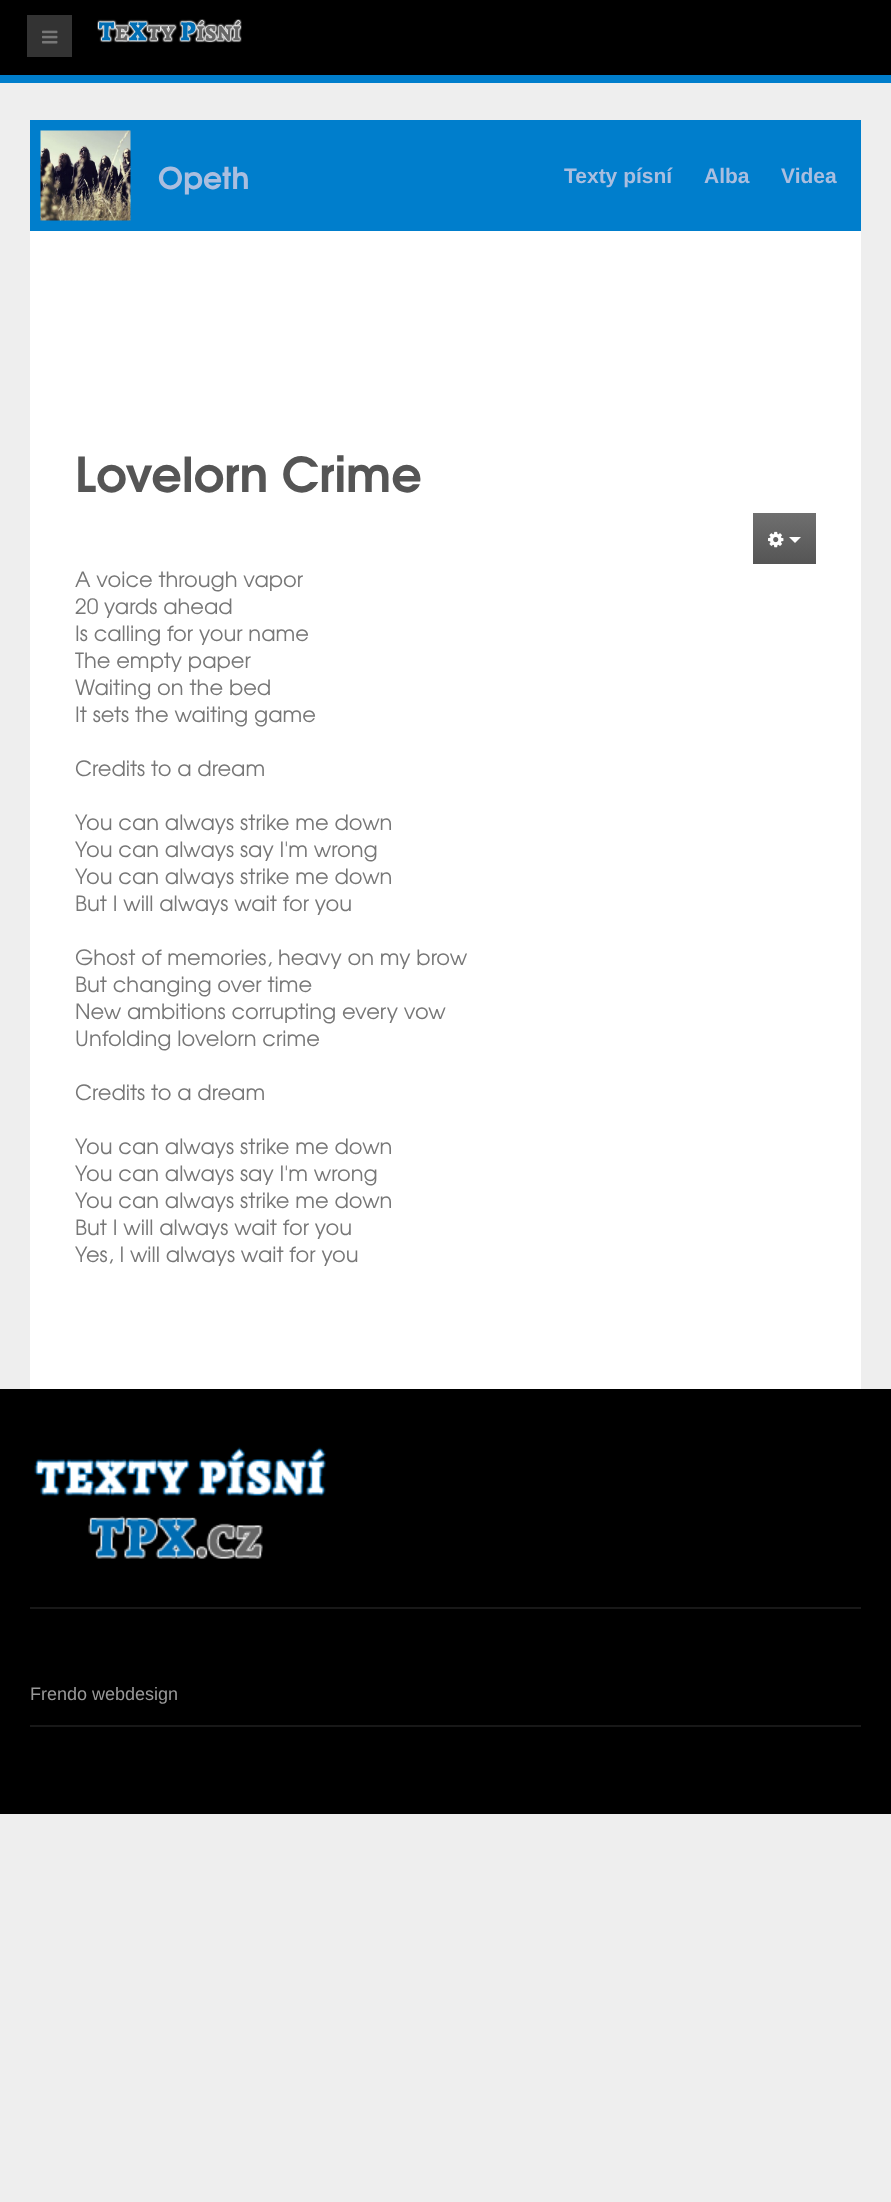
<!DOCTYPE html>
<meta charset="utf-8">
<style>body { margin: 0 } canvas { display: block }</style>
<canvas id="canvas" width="891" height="2202"></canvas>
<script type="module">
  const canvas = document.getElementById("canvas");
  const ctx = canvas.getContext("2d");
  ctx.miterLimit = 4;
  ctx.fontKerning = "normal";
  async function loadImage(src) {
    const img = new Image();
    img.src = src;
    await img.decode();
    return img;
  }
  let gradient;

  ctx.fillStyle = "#eeeeee";
  ctx.fillRect(0, 0, 891, 2202);
  ctx.fillStyle = "#000000";
  ctx.fillRect(0, 0, 891, 75);
  ctx.fillStyle = "#007ecc";
  ctx.fillRect(0, 75, 891, 8);
  ctx.fillStyle = "#333333";
  ctx.fillRect(27, 15, 45, 42);
  ctx.drawImage(await loadImage("img1.png"), 42, 30, 16, 14);
  ctx.drawImage(await loadImage("img2.png"), 97, 19, 145, 24);
  ctx.fillStyle = "#ffffff";
  ctx.fillRect(30, 231, 831, 1158);
  ctx.fillStyle = "#007ecc";
  ctx.fillRect(30, 120, 831, 111);
  ctx.drawImage(await loadImage("img3.png"), 40, 130, 91, 91);
  ctx.font = "bold 30px TeX Gyre Adventor";
  ctx.fillStyle = "#aabedf";
  ctx.fillText("Opeth", 158, 189);
  ctx.font = "bold 21px Liberation Sans";
  ctx.fillText("Texty písní", 564, 183);
  ctx.fillText("Alba", 704, 183);
  ctx.fillText("Videa", 781, 183);
  ctx.font = "bold 48px TeX Gyre Adventor";
  ctx.fillStyle = "#555555";
  ctx.fillText("Lovelorn Crime", 75, 492);
  gradient = ctx.createLinearGradient(785, 513, 785, 564);
  gradient.addColorStop(0, "#6f6f6f");
  gradient.addColorStop(1, "#555555");
  ctx.fillStyle = gradient;
  ctx.fillRect(753, 513, 63, 51);
  ctx.drawImage(await loadImage("img4.png"), 768, 531, 16, 17);
  ctx.fillStyle = "#ffffff";
  ctx.beginPath();
  ctx.moveTo(789, 537);
  ctx.lineTo(801, 537);
  ctx.lineTo(795, 543);
  ctx.closePath();
  ctx.fill();
  ctx.font = "21px TeX Gyre Adventor";
  ctx.fillStyle = "#777777";
  ctx.fillText("A voice through vapor", 75, 587);
  ctx.fillText("20 yards ahead", 75, 614);
  ctx.fillText("Is calling for your name", 75, 641);
  ctx.fillText("The empty paper", 75, 668);
  ctx.fillText("Waiting on the bed", 75, 695);
  ctx.fillText("It sets the waiting game", 75, 722);
  ctx.fillText("Credits to a dream", 75, 776);
  ctx.fillText("You can always strike me down", 75, 830);
  ctx.fillText("You can always say I'm wrong", 75, 857);
  ctx.fillText("You can always strike me down", 75, 884);
  ctx.fillText("But I will always wait for you", 75, 911);
  ctx.fillText("Ghost of memories, heavy on my brow", 75, 965);
  ctx.fillText("But changing over time", 75, 992);
  ctx.fillText("New ambitions corrupting every vow", 75, 1019);
  ctx.fillText("Unfolding lovelorn crime", 75, 1046);
  ctx.fillText("Credits to a dream", 75, 1100);
  ctx.fillText("You can always strike me down", 75, 1154);
  ctx.fillText("You can always say I'm wrong", 75, 1181);
  ctx.fillText("You can always strike me down", 75, 1208);
  ctx.fillText("But I will always wait for you", 75, 1235);
  ctx.fillText("Yes, I will always wait for you", 75, 1262);
  ctx.fillStyle = "#000000";
  ctx.fillRect(0, 1389, 891, 425);
  ctx.fillStyle = "#181818";
  ctx.fillRect(30, 1607, 831, 2);
  ctx.drawImage(await loadImage("img5.png"), 34, 1447, 292, 112);
  ctx.font = "18px Liberation Sans";
  ctx.fillStyle = "#999999";
  ctx.fillText("Frendo webdesign", 30, 1700);
  ctx.fillStyle = "#181818";
  ctx.fillRect(30, 1725, 831, 2);
</script>
